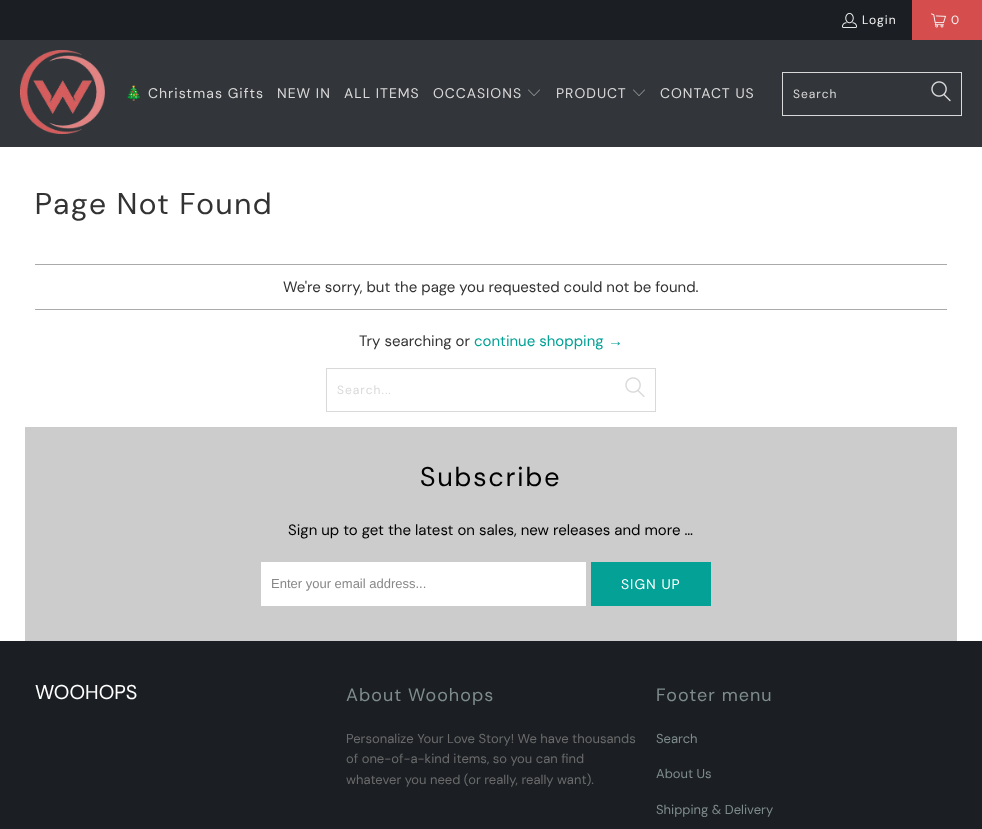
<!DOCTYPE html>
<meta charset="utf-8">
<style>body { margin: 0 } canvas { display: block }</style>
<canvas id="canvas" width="982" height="829"></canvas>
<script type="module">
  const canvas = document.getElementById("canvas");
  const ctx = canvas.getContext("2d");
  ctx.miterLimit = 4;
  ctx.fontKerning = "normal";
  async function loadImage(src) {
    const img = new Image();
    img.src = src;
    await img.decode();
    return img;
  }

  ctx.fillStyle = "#ffffff";
  ctx.fillRect(0, 0, 982, 829);
  ctx.fillStyle = "#1b1f23";
  ctx.fillRect(0, 0, 912, 40);
  ctx.drawImage(await loadImage("img1.png"), 842, 12, 15, 16);
  ctx.letterSpacing = "1px";
  ctx.font = "12px 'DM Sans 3'";
  ctx.fillStyle = "#f4f4f4";
  ctx.fillText("Login", 862, 24);
  ctx.fillStyle = "#d54d4d";
  ctx.fillRect(912, 0, 70, 40);
  ctx.drawImage(await loadImage("img2.png"), 931, 13, 15, 15);
  ctx.fillStyle = "#f4f4f4";
  ctx.fillText("0", 951, 24);
  ctx.fillStyle = "#323539";
  ctx.fillRect(0, 40, 982, 107);
  ctx.drawImage(await loadImage("img3.png"), 20, 50, 85, 84);
  ctx.font = "14px Noto Color Emoji";
  ctx.fillStyle = "#d9d9d9";
  ctx.fillText("🎄", 125, 98);
  ctx.font = "14px 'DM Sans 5'";
  ctx.fillText("Christmas Gifts", 148, 98);
  ctx.fillText("NEW IN", 277, 98);
  ctx.fillText("ALL ITEMS", 344, 98);
  ctx.fillText("OCCASIONS", 433, 98);
  ctx.drawImage(await loadImage("img4.png"), 528, 89, 12, 7);
  ctx.fillText("PRODUCT", 556, 98);
  ctx.drawImage(await loadImage("img4.png"), 633, 89, 12, 7);
  ctx.fillText("CONTACT US", 660, 98);
  ctx.strokeStyle = "#d9d9d9";
  ctx.strokeRect(782.5, 72.5, 179, 43);
  ctx.font = "12px 'DM Sans 3'";
  ctx.fillText("Search", 793, 98);
  ctx.drawImage(await loadImage("img5.png"), 931, 81, 20, 21);
  ctx.letterSpacing = "2px";
  ctx.font = "30px DM Sans";
  ctx.fillStyle = "#333333";
  ctx.fillText("Page Not Found", 35, 214);
  ctx.fillStyle = "#aaaaaa";
  ctx.fillRect(35, 264, 912, 1);
  ctx.fillRect(35, 309, 912, 1);
  ctx.letterSpacing = "0px";
  ctx.font = "15px 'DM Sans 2'";
  ctx.fillStyle = "#333333";
  ctx.fillText("We're sorry, but the page you requested could not be found.", 283, 292);
  ctx.fillText("Try searching or", 359, 346);
  ctx.fillStyle = "#03a196";
  ctx.fillText("continue shopping", 474, 346);
  ctx.font = "15px Liberation Sans";
  ctx.fillText("→", 608, 346);
  ctx.strokeRect(326.5, 368.5, 329, 43);
  ctx.letterSpacing = "1px";
  ctx.font = "12px 'DM Sans 3'";
  ctx.fillStyle = "#d9d9d9";
  ctx.fillText("Search...", 337, 394);
  ctx.drawImage(await loadImage("img6.png"), 625, 377, 20, 20);
  ctx.fillStyle = "#cccccc";
  ctx.fillRect(25, 427, 932, 214);
  ctx.letterSpacing = "2px";
  ctx.font = "27px 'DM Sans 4'";
  ctx.fillStyle = "#000000";
  ctx.fillText("Subscribe", 420, 486);
  ctx.letterSpacing = "0px";
  ctx.font = "15px 'DM Sans 2'";
  ctx.fillText("Sign up to get the latest on sales, new releases and more …", 288, 535);
  ctx.fillStyle = "#ffffff";
  ctx.fillRect(261, 562, 325, 44);
  ctx.font = "13px Liberation Sans";
  ctx.fillStyle = "#888888";
  ctx.fillText("Enter your email address...", 271, 588);
  ctx.fillStyle = "#03a196";
  ctx.fillRect(591, 562, 120, 44);
  ctx.letterSpacing = "1px";
  ctx.font = "14px 'DM Sans 5'";
  ctx.fillStyle = "#ffffff";
  ctx.fillText("SIGN UP", 621, 589);
  ctx.fillStyle = "#1b1f23";
  ctx.fillRect(0, 641, 982, 188);
  ctx.letterSpacing = "0px";
  ctx.font = "20px 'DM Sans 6'";
  ctx.fillStyle = "#ffffff";
  ctx.fillText("WOOHOPS", 35, 699);
  ctx.letterSpacing = "1px";
  ctx.font = "18px 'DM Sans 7'";
  ctx.fillStyle = "#7f8c8d";
  ctx.fillText("About Woohops", 346, 701);
  ctx.letterSpacing = "0px";
  ctx.font = "13px 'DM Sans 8'";
  ctx.fillStyle = "#6b6b6b";
  ctx.fillText("Personalize Your Love Story! We have thousands", 346, 743);
  ctx.fillText("of one-of-a-kind items, so you can find", 346, 763);
  ctx.fillText("whatever you need (or really, really want).", 346, 784);
  ctx.letterSpacing = "1px";
  ctx.font = "18px 'DM Sans 7'";
  ctx.fillStyle = "#7f8c8d";
  ctx.fillText("Footer menu", 656, 701);
  ctx.letterSpacing = "0px";
  ctx.font = "13px 'DM Sans 8'";
  ctx.fillText("Search", 656, 743);
  ctx.fillText("About Us", 656, 778);
  ctx.fillText("Shipping & Delivery", 656, 814);
</script>
